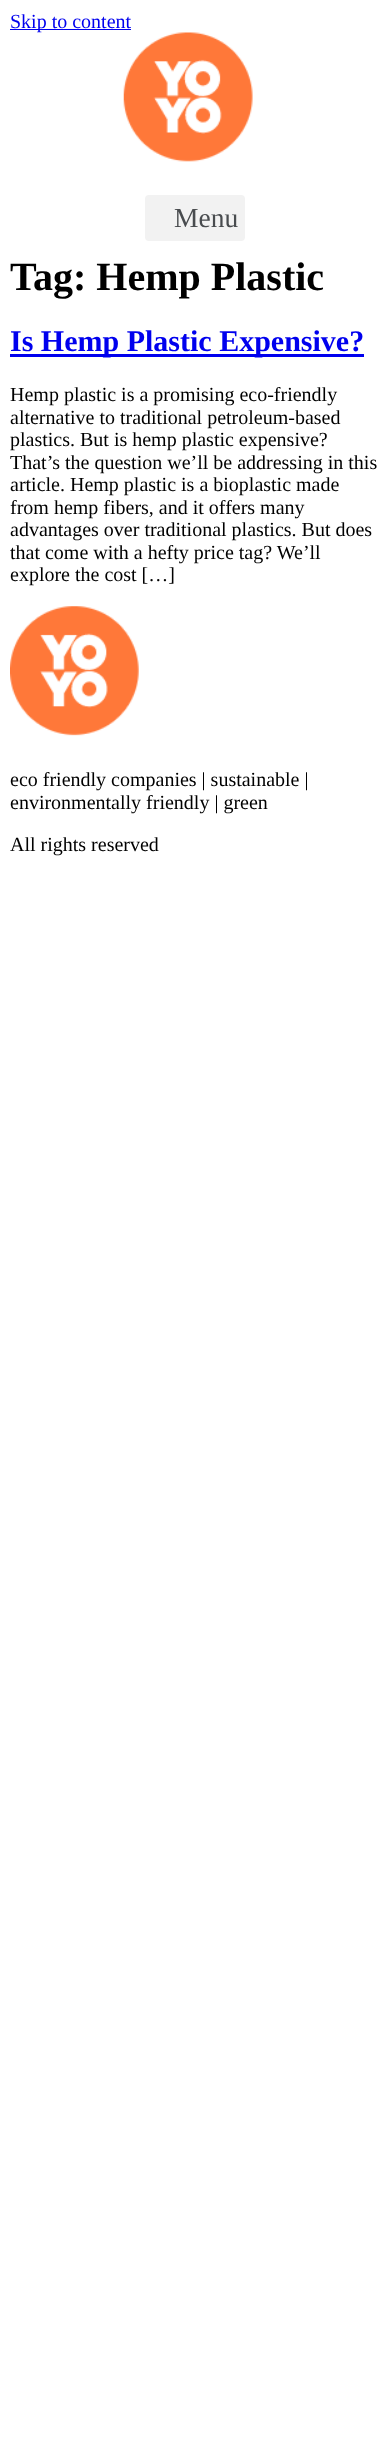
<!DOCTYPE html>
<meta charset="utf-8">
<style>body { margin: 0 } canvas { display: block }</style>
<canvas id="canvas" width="389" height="2464"></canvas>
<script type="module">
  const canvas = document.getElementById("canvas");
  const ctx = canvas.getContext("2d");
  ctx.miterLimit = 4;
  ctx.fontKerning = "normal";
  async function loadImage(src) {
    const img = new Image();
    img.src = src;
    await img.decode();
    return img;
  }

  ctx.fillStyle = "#ffffff";
  ctx.fillRect(0, 0, 389, 2464);
  ctx.fillStyle = "#0000ee";
  ctx.fillRect(10, 29, 121, 1);
  ctx.font = "20px Liberation Serif";
  ctx.fillText("Skip to content", 10, 28);
  ctx.drawImage(await loadImage("img1.png"), 123, 32, 130, 130);
  ctx.fillStyle = "#f2f2f2";
  ctx.beginPath();
  ctx.roundRect(145, 195, 100, 46, 4);
  ctx.fill();
  ctx.font = "27.5px Liberation Serif";
  ctx.fillStyle = "#494c4f";
  ctx.fillText("Menu", 174, 227);
  ctx.font = "bold 40px Liberation Serif";
  ctx.fillStyle = "#000000";
  ctx.fillText("Tag: Hemp Plastic", 10, 290);
  ctx.fillStyle = "#0000ee";
  ctx.fillRect(10, 354, 354, 3);
  ctx.font = "bold 30px Liberation Serif";
  ctx.fillText("Is Hemp Plastic Expensive?", 10, 351);
  ctx.font = "20px Liberation Serif";
  ctx.fillStyle = "#000000";
  ctx.fillText("Hemp plastic is a promising eco-friendly", 10, 401);
  ctx.fillText("alternative to traditional petroleum-based", 10, 424);
  ctx.fillText("plastics. But is hemp plastic expensive?", 10, 446);
  ctx.fillText("That’s the question we’ll be addressing in this", 10, 469);
  ctx.fillText("article. Hemp plastic is a bioplastic made", 10, 491);
  ctx.fillText("from hemp fibers, and it offers many", 10, 514);
  ctx.fillText("advantages over traditional plastics. But does", 10, 536);
  ctx.fillText("that come with a hefty price tag? We’ll", 10, 559);
  ctx.fillText("explore the cost […]", 10, 581);
  ctx.drawImage(await loadImage("img2.png"), 10, 606, 129, 130);
  ctx.fillText("eco friendly companies | sustainable |", 10, 786);
  ctx.fillText("environmentally friendly | green", 10, 809);
  ctx.fillText("All rights reserved", 10, 851);
</script>
